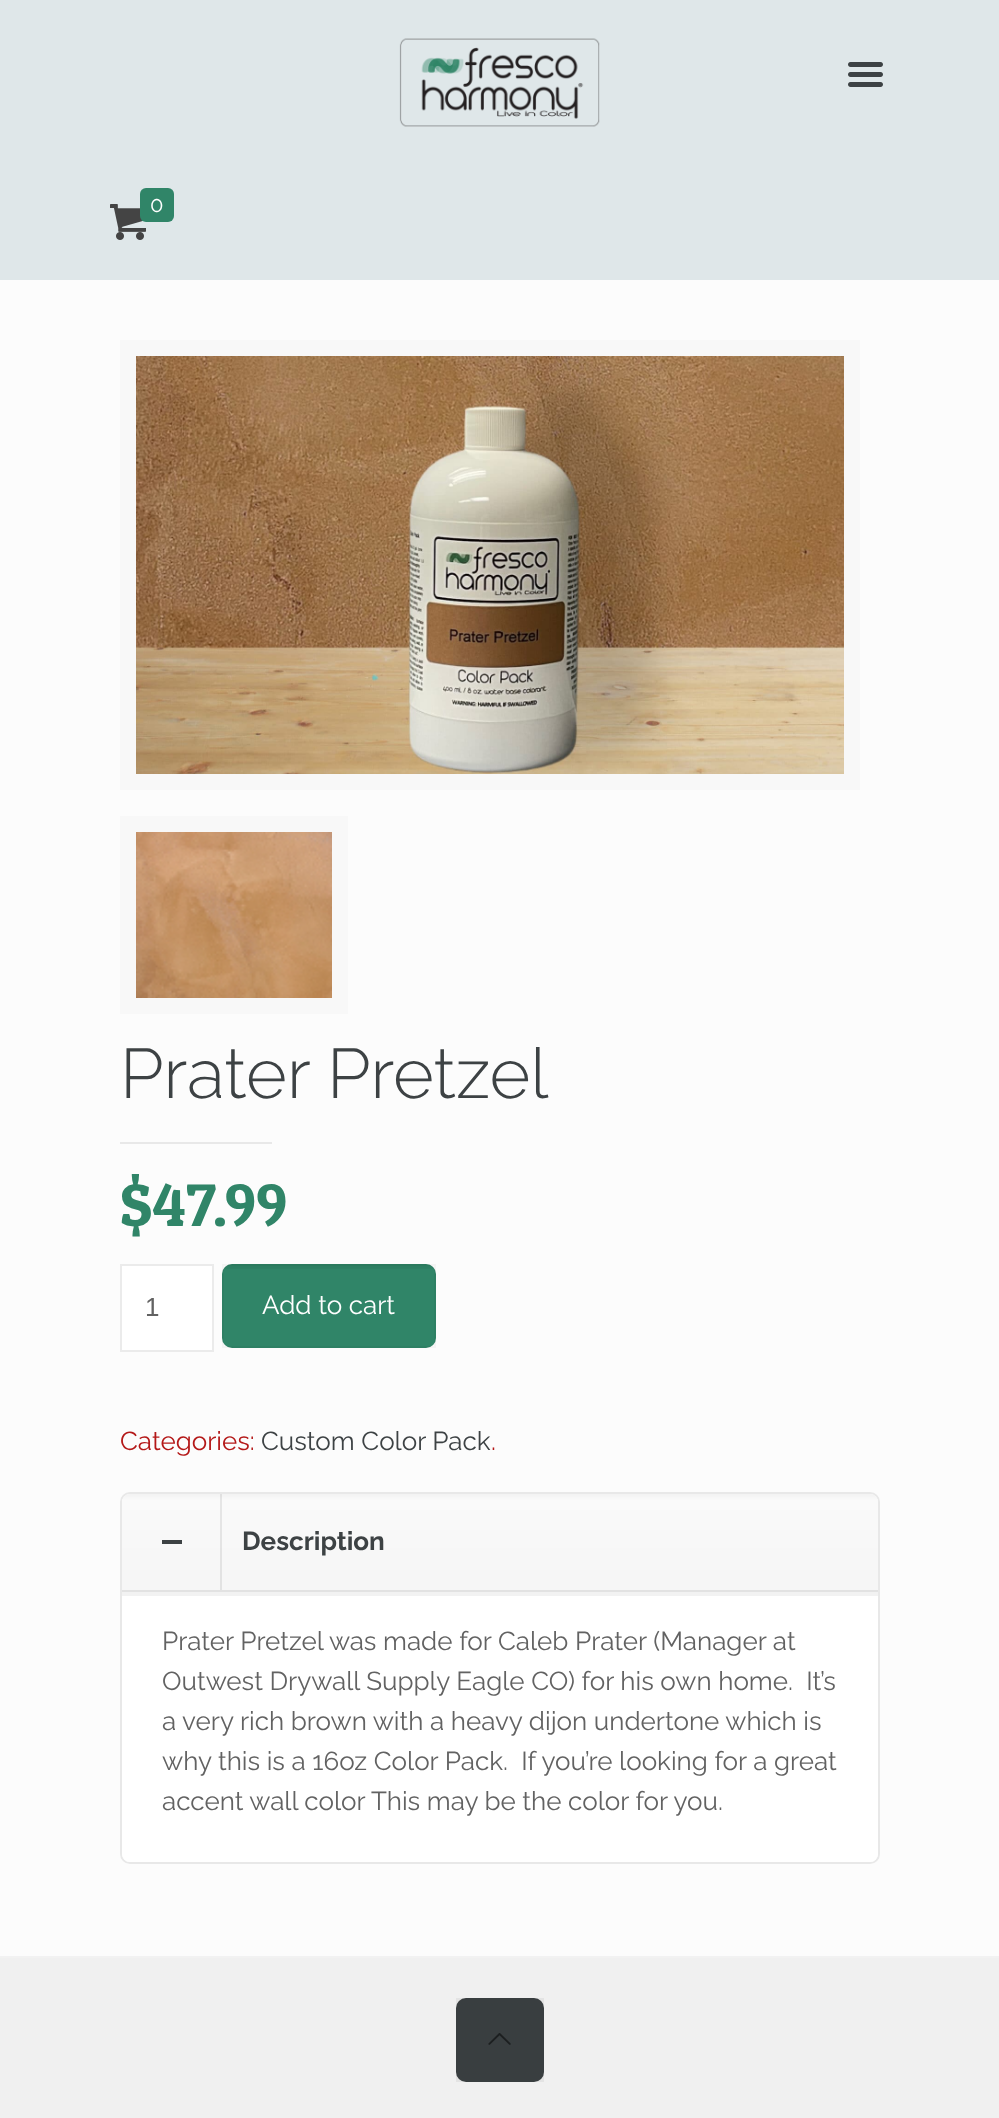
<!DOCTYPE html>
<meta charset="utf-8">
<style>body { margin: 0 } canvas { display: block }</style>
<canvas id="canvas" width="999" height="2118"></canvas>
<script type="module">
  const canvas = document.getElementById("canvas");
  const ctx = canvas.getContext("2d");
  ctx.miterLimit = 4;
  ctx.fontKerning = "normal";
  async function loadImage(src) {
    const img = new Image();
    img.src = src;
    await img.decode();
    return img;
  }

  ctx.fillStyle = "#fcfcfc";
  ctx.fillRect(0, 0, 999, 2118);
  ctx.fillStyle = "#dfe7e9";
  ctx.fillRect(0, 0, 999, 280);
  ctx.drawImage(await loadImage("img1.png"), 399, 38, 201, 89);
  ctx.drawImage(await loadImage("img2.png"), 848, 62, 35, 25);
  ctx.drawImage(await loadImage("img3.png"), 110, 204, 36, 36);
  ctx.fillStyle = "#308568";
  ctx.beginPath();
  ctx.roundRect(140, 188, 34, 34, 6);
  ctx.fill();
  ctx.font = "22px Raleway";
  ctx.fillStyle = "#ffffff";
  ctx.fillText("0", 150, 212);
  ctx.strokeStyle = "#f8f8f8";
  ctx.lineWidth = 16;
  ctx.strokeRect(128, 348, 724, 434);
  ctx.drawImage(await loadImage("img4.png"), 136, 356, 708, 418);
  ctx.strokeRect(128, 824, 212, 182);
  ctx.drawImage(await loadImage("img5.png"), 136, 832, 196, 166);
  ctx.font = "300 70px Raleway";
  ctx.fillStyle = "#3d4244";
  ctx.fillText("Prater Pretzel", 120, 1098);
  ctx.fillStyle = "#e8e8e8";
  ctx.fillRect(120, 1142, 152, 2);
  ctx.font = "60px Patua One";
  ctx.fillStyle = "#308568";
  ctx.fillText("$47.99", 120, 1226);
  ctx.fillStyle = "#ffffff";
  ctx.beginPath();
  ctx.rect(121, 1265, 92, 86);
  ctx.fill();
  ctx.strokeStyle = "#ebebeb";
  ctx.lineWidth = 2;
  ctx.stroke();
  ctx.font = "26px Liberation Sans";
  ctx.fillStyle = "#626262";
  ctx.fillText("1", 145, 1316);
  ctx.fillStyle = "#308568";
  ctx.beginPath();
  ctx.roundRect(222, 1264, 214, 84, 10);
  ctx.fill();
  ctx.drawImage(await loadImage("img6.png"), 224, 1264, 210, 5);
  ctx.strokeStyle = "rgba(0, 0, 0, 0.03)";
  ctx.strokeRect(223, 1265, 212, 82);
  ctx.font = "26px Raleway";
  ctx.fillStyle = "#ffffff";
  ctx.fillText("Add to cart", 262, 1314);
  ctx.fillStyle = "#b41818";
  ctx.fillText("Categories:", 120, 1450);
  ctx.fillStyle = "#3d4244";
  ctx.fillText("Custom Color Pack", 261, 1450);
  ctx.fillStyle = "#b41818";
  ctx.fillText(".", 491, 1450);
  ctx.beginPath();
  ctx.roundRect(121, 1493, 758, 370, 9);
  ctx.strokeStyle = "#e8e8e8";
  ctx.stroke();
  ctx.drawImage(await loadImage("img7.png"), 122, 1494, 756, 96);
  ctx.fillStyle = "#e2e2e2";
  ctx.fillRect(122, 1590, 756, 2);
  ctx.fillStyle = "#3d4244";
  ctx.fillRect(162, 1540, 20, 4);
  ctx.fillStyle = "rgba(0, 0, 0, 0.08)";
  ctx.fillRect(220, 1494, 2, 96);
  ctx.font = "bold 26px Raleway";
  ctx.fillStyle = "#3d4244";
  ctx.fillText("Description", 242, 1550);
  ctx.fillStyle = "#ffffff";
  ctx.beginPath();
  ctx.roundRect(122, 1592, 756, 270, [0, 0, 8, 8]);
  ctx.fill();
  ctx.fillStyle = "#f2f2f2";
  ctx.fillRect(122, 1592, 756, 4);
  ctx.font = "26px Raleway";
  ctx.fillStyle = "#626262";
  ctx.fillText("Prater Pretzel was made for Caleb Prater (Manager at", 162, 1650);
  ctx.fillText("Outwest Drywall Supply Eagle CO) for his own home.  It’s", 162, 1690);
  ctx.fillText("a very rich brown with a heavy dijon undertone which is", 162, 1730);
  ctx.fillText("why this is a 16oz Color Pack.  If you’re looking for a great", 162, 1770);
  ctx.fillText("accent wall color This may be the color for you.", 162, 1810);
  ctx.fillStyle = "#f0f0f0";
  ctx.fillRect(0, 1958, 999, 160);
  ctx.fillStyle = "#f2f2f2";
  ctx.fillRect(0, 1956, 999, 2);
  ctx.fillStyle = "#3d4244";
  ctx.beginPath();
  ctx.roundRect(456, 1998, 88, 84, 10);
  ctx.fill();
  ctx.fillStyle = "rgba(0, 0, 0, 0.05)";
  ctx.fillRect(456, 1998, 88, 84);
  ctx.drawImage(await loadImage("img8.png"), 488, 2033, 23, 12);
</script>
